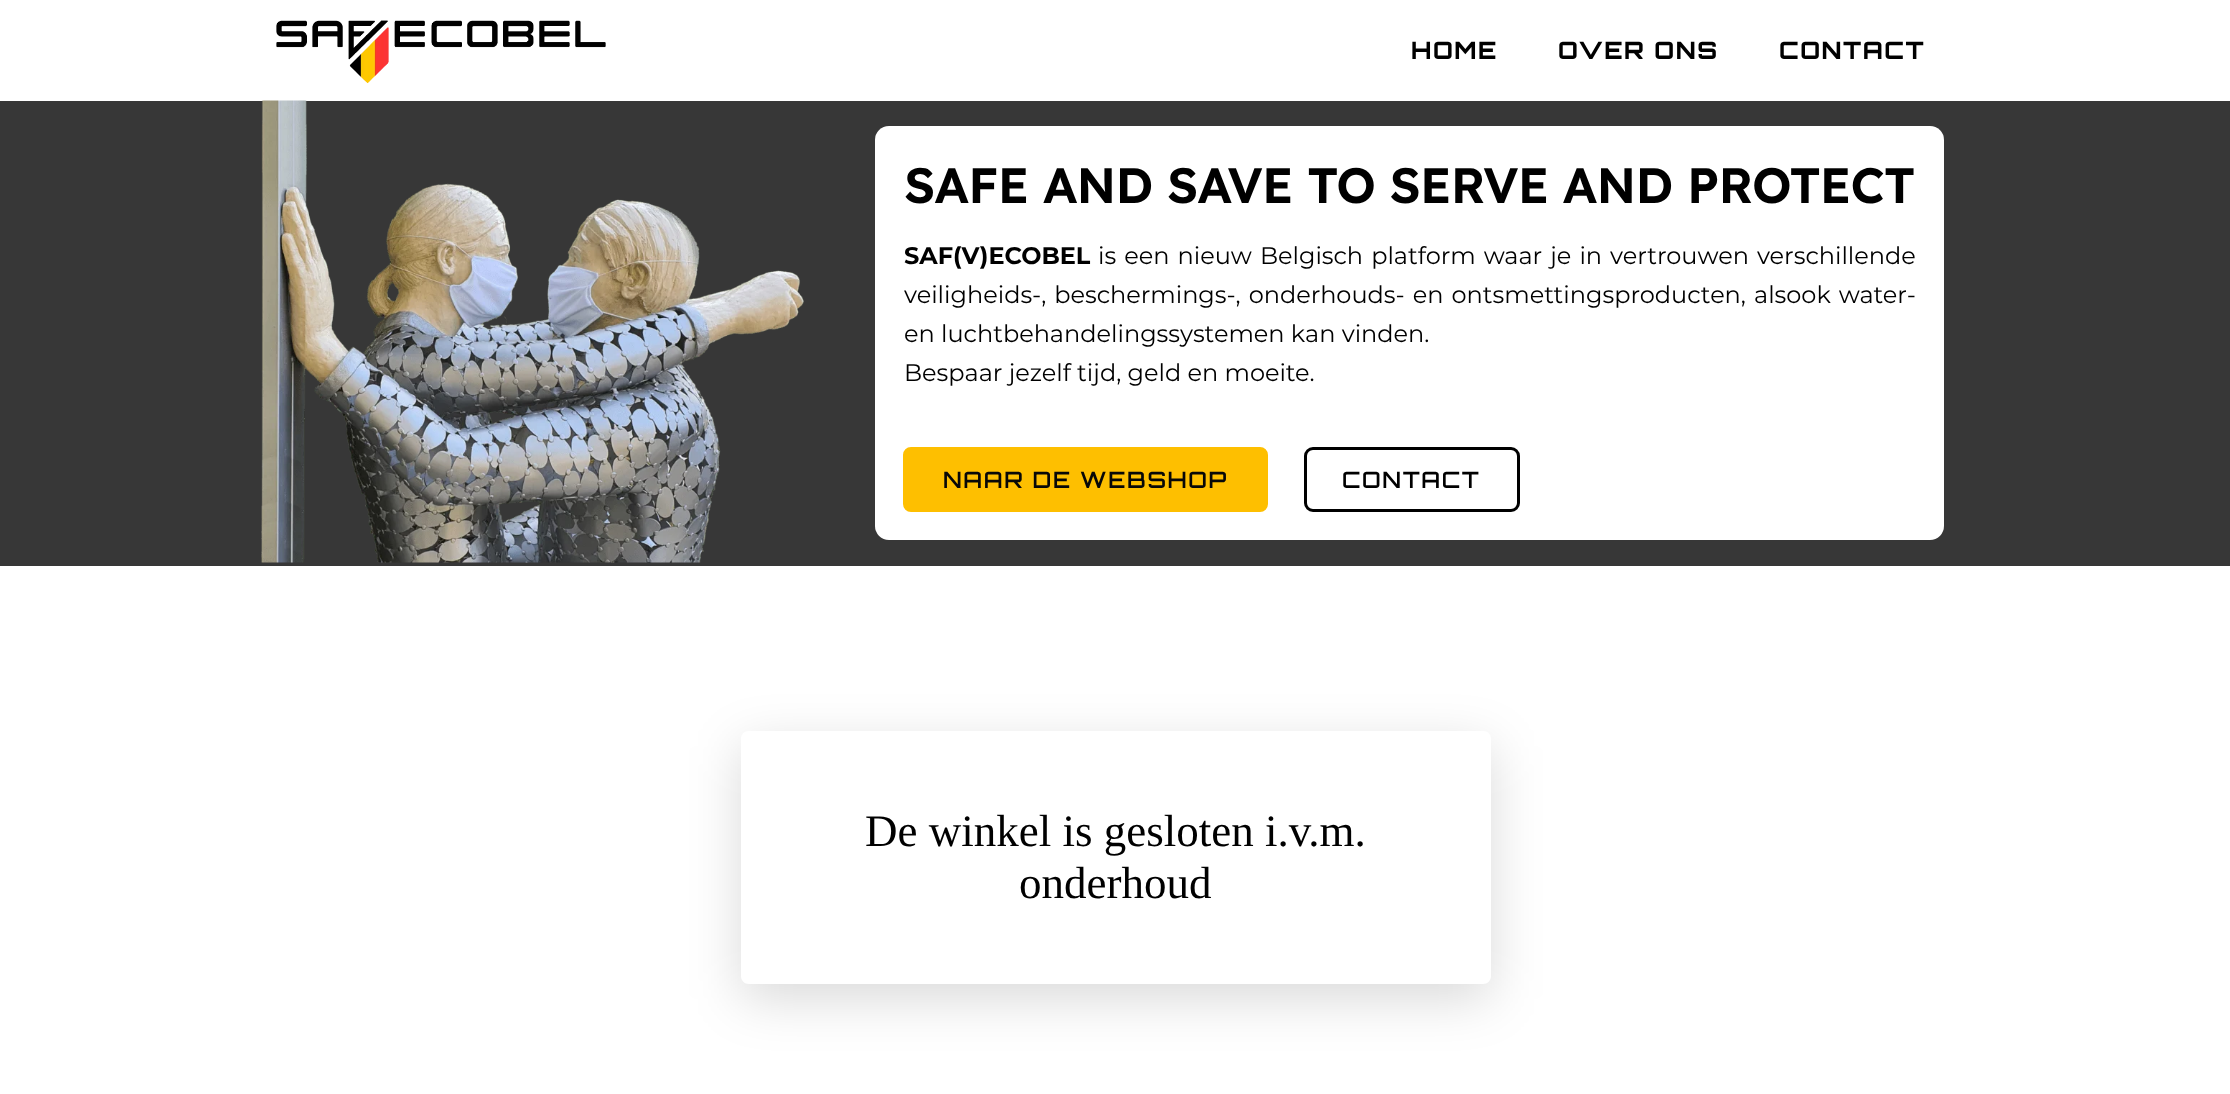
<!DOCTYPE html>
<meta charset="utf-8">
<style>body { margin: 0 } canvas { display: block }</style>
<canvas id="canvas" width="2230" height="1094"></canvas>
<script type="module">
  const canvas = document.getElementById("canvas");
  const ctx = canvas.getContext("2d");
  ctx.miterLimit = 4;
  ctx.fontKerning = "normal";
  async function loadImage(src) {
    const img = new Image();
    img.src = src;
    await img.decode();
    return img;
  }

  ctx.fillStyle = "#ffffff";
  ctx.fillRect(0, 0, 2230, 1094);
  ctx.drawImage(await loadImage("img1.png"), 276, 20, 330, 64);
  ctx.letterSpacing = "1.5px";
  ctx.font = "800 24px Orbitron";
  ctx.fillStyle = "#000000";
  ctx.fillText("HOME", 1411, 59);
  ctx.fillText("OVER ONS", 1558, 59);
  ctx.fillText("CONTACT", 1779, 59);
  ctx.fillStyle = "#373737";
  ctx.fillRect(0, 101, 2230, 465);
  ctx.drawImage(await loadImage("img2.png"), 261, 100, 543, 463);
  ctx.fillStyle = "#ffffff";
  ctx.beginPath();
  ctx.roundRect(875, 126, 1069, 414, 14);
  ctx.fill();
  ctx.letterSpacing = "-0.75px";
  ctx.font = "600 49.5px Lexend Deca";
  ctx.fillStyle = "#000000";
  ctx.fillText("SAFE AND SAVE TO SERVE AND PROTECT", 904, 203);
  ctx.letterSpacing = "0px";
  ctx.font = "bold 24px Montserrat";
  ctx.fillText("SAF(V)ECOBEL", 904, 264);
  ctx.wordSpacing = "1.75px";
  ctx.font = "24px Montserrat";
  ctx.fillText("is een nieuw Belgisch platform waar je in vertrouwen verschillende", 1098, 264);
  ctx.fillText("veiligheids-, beschermings-, onderhouds- en ontsmettingsproducten, alsook water-", 904, 303);
  ctx.wordSpacing = "0px";
  ctx.fillText("en luchtbehandelingssystemen kan vinden.", 904, 342);
  ctx.fillText("Bespaar jezelf tijd, geld en moeite.", 904, 381);
  ctx.fillStyle = "#febf00";
  ctx.beginPath();
  ctx.roundRect(904.5, 448.5, 362, 62, 6.5);
  ctx.fill();
  ctx.strokeStyle = "#febf00";
  ctx.lineWidth = 3;
  ctx.stroke();
  ctx.letterSpacing = "1.6px";
  ctx.font = "600 22.5px Orbitron";
  ctx.fillStyle = "#080808";
  ctx.fillText("NAAR DE WEBSHOP", 943, 488);
  ctx.beginPath();
  ctx.roundRect(1305.5, 448.5, 213, 62, 7.5);
  ctx.strokeStyle = "#000000";
  ctx.stroke();
  ctx.fillStyle = "#000000";
  ctx.fillText("CONTACT", 1342, 488);
  ctx.save();
  ctx.beginPath();
  ctx.moveTo(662, 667);
  ctx.lineTo(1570, 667);
  ctx.lineTo(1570, 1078);
  ctx.lineTo(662, 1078);
  ctx.closePath();
  ctx.moveTo(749, 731);
  ctx.lineTo(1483, 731);
  ctx.bezierCurveTo(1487.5, 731, 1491, 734.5, 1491, 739);
  ctx.lineTo(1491, 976);
  ctx.bezierCurveTo(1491, 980.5, 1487.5, 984, 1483, 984);
  ctx.lineTo(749, 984);
  ctx.bezierCurveTo(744.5, 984, 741, 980.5, 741, 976);
  ctx.lineTo(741, 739);
  ctx.bezierCurveTo(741, 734.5, 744.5, 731, 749, 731);
  ctx.closePath();
  ctx.clip("evenodd");
  ctx.fillStyle = "rgba(0, 0, 0, 0.15)";
  ctx.filter = "blur(26px)";
  ctx.beginPath();
  ctx.roundRect(741, 746, 750, 253, 8);
  ctx.fill();
  ctx.filter = "none";
  ctx.restore();
  ctx.letterSpacing = "0px";
  ctx.font = "45px Liberation Serif";
  ctx.fillText("De winkel is gesloten i.v.m.", 865, 846);
  ctx.fillText("onderhoud", 1019, 898);
</script>
